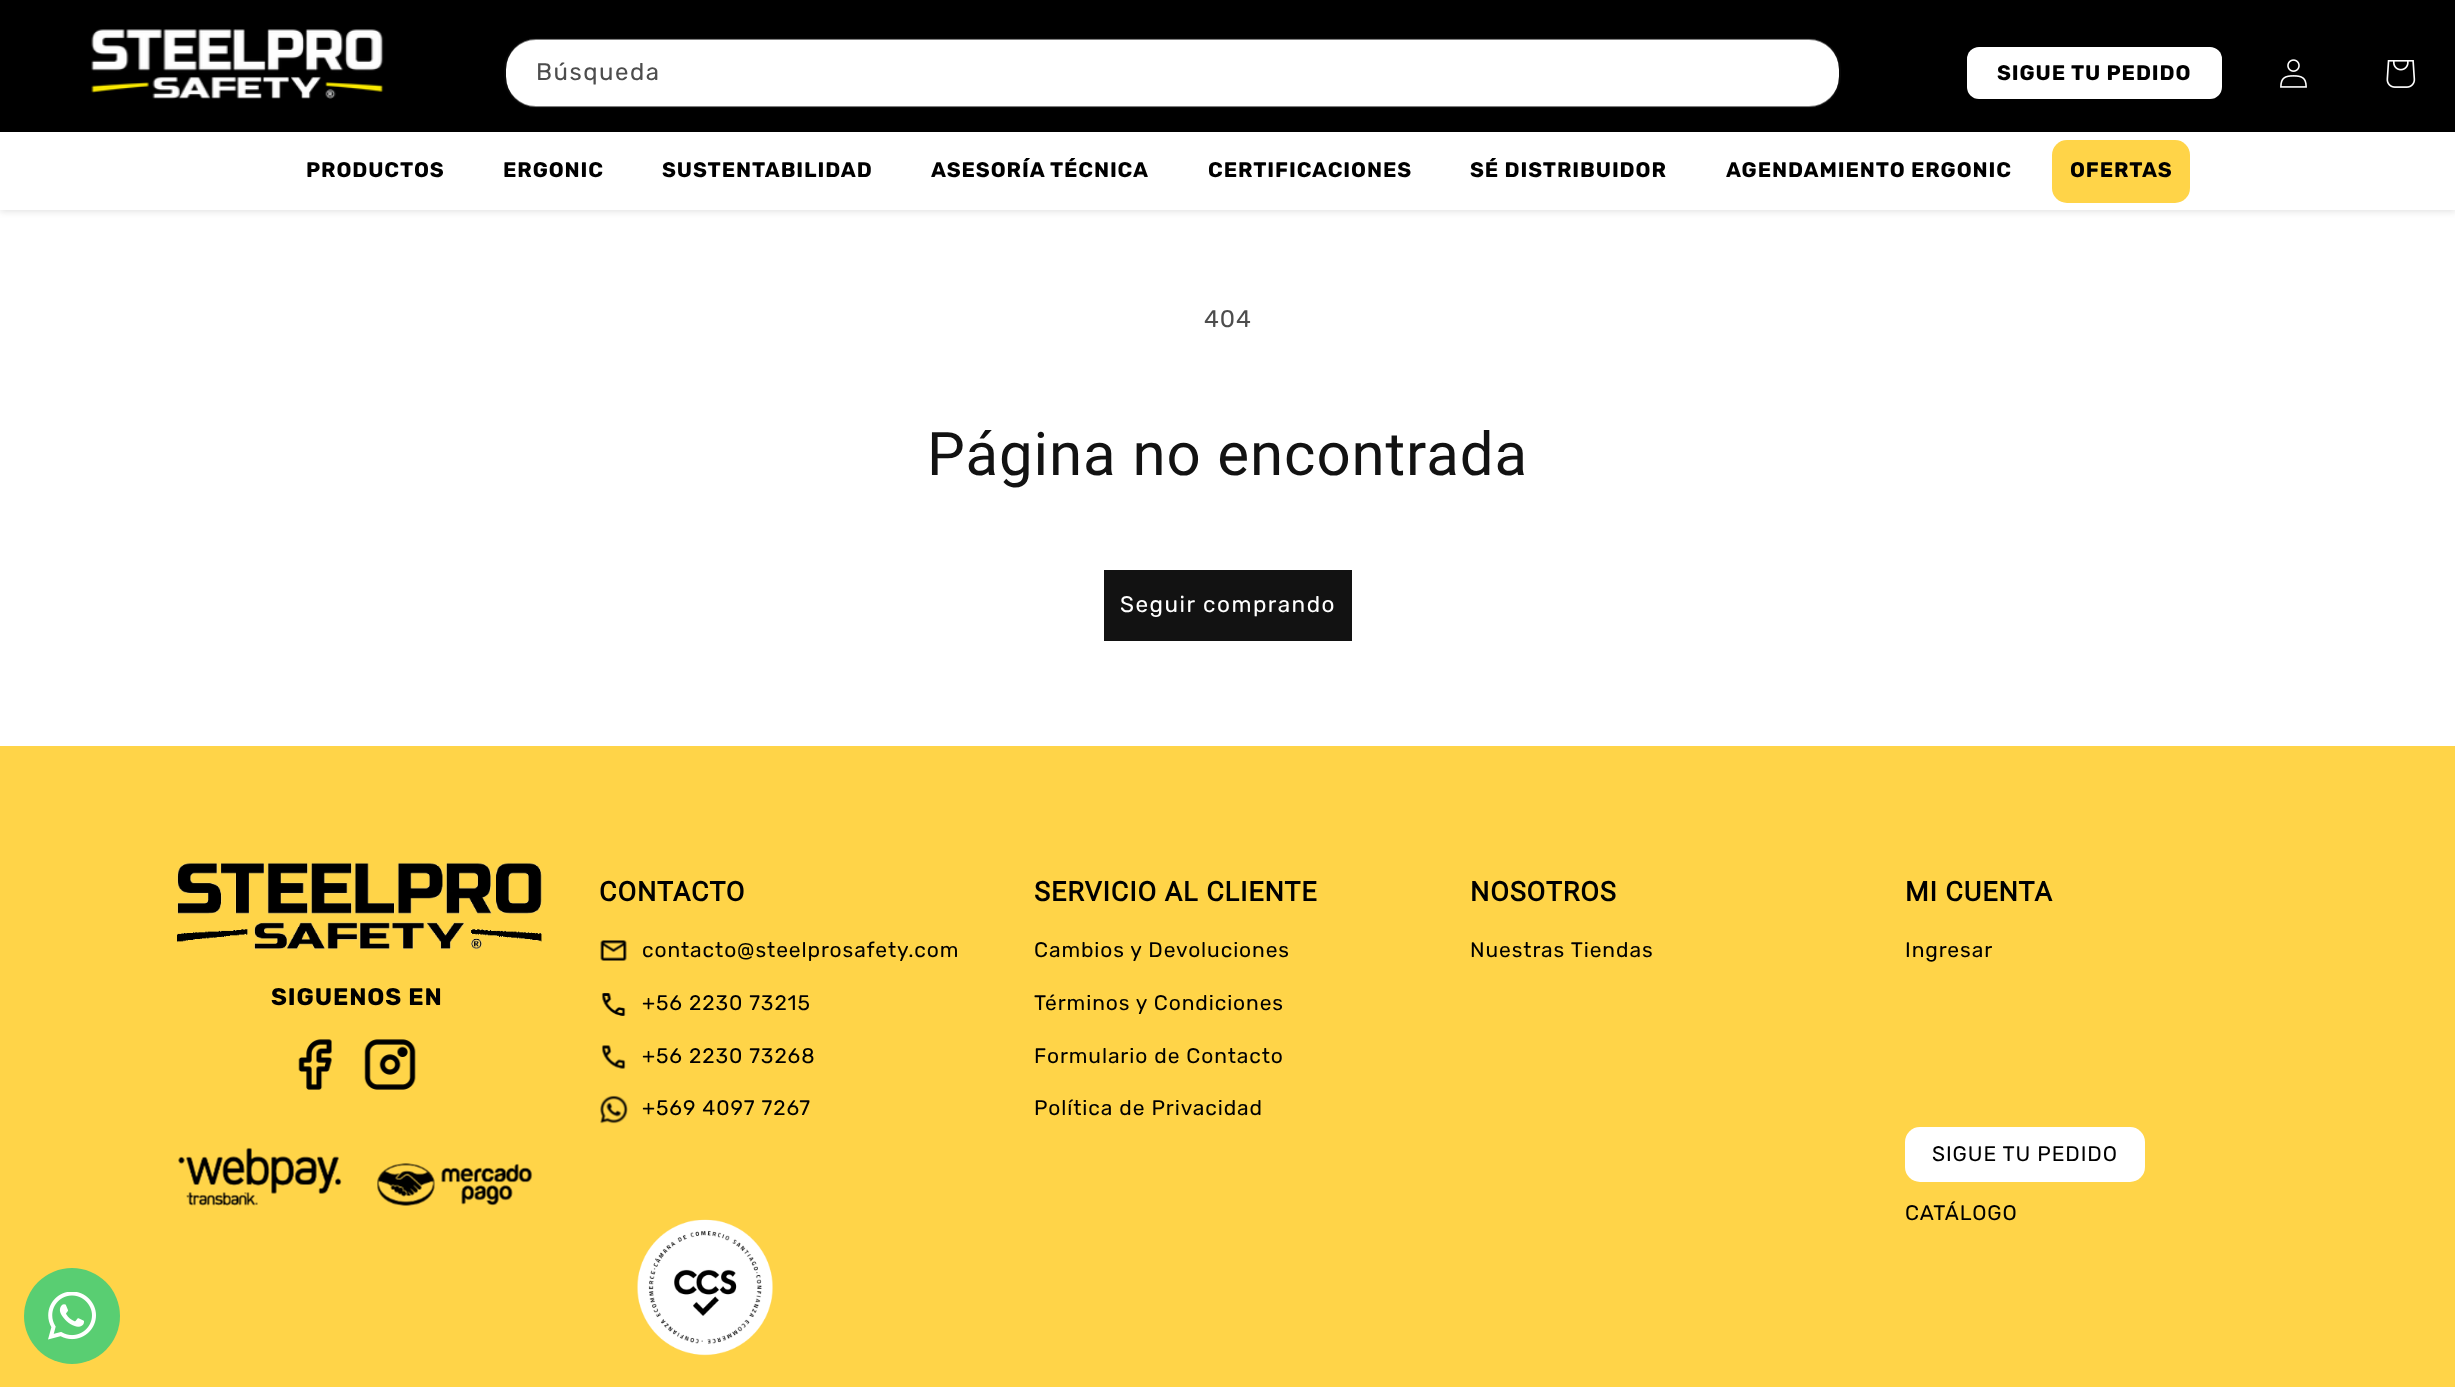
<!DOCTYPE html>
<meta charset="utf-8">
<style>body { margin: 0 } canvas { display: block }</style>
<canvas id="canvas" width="2455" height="1387"></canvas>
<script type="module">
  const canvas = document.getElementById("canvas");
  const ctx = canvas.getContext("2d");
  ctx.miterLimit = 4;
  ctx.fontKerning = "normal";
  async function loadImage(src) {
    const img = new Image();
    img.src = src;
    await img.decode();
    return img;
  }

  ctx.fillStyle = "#ffffff";
  ctx.fillRect(0, 0, 2455, 1387);
  ctx.fillStyle = "rgba(0, 0, 0, 0.1)";
  ctx.filter = "blur(3px)";
  ctx.beginPath();
  ctx.rect(0, 3, 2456, 209);
  ctx.fill();
  ctx.filter = "none";
  ctx.fillStyle = "#000000";
  ctx.fillRect(0, 0, 2455, 132);
  ctx.drawImage(await loadImage("img1.png"), 91, 29, 293, 70);
  ctx.fillStyle = "#ffffff";
  ctx.beginPath();
  ctx.roundRect(506, 39, 1333, 68, 30);
  ctx.fill();
  ctx.beginPath();
  ctx.roundRect(505, 39, 1335, 68, 31);
  ctx.strokeStyle = "rgba(18, 18, 18, 0.55)";
  ctx.lineWidth = 2;
  ctx.stroke();
  ctx.letterSpacing = "1.5px";
  ctx.font = "24px Rubik";
  ctx.fillStyle = "#4d4d4d";
  ctx.fillText("Búsqueda", 536, 80);
  ctx.fillStyle = "#ffffff";
  ctx.beginPath();
  ctx.roundRect(1967, 47, 255, 52, 12);
  ctx.fill();
  ctx.letterSpacing = "0.9px";
  ctx.font = "bold 21px Rubik";
  ctx.fillStyle = "#000000";
  ctx.fillText("SIGUE TU PEDIDO", 1997, 80);
  ctx.drawImage(await loadImage("img2.png"), 2280, 59, 27, 29);
  ctx.drawImage(await loadImage("img3.png"), 2386, 60, 30, 28);
  ctx.fillStyle = "#ffffff";
  ctx.fillRect(0, 132, 2455, 78);
  ctx.fillStyle = "#000000";
  ctx.fillText("PRODUCTOS", 306, 177);
  ctx.fillText("ERGONIC", 503, 177);
  ctx.fillText("SUSTENTABILIDAD", 662, 177);
  ctx.fillText("ASESORÍA TÉCNICA", 931, 177);
  ctx.fillText("CERTIFICACIONES", 1208, 177);
  ctx.fillText("SÉ DISTRIBUIDOR", 1470, 177);
  ctx.fillText("AGENDAMIENTO ERGONIC", 1726, 177);
  ctx.fillStyle = "#ffd448";
  ctx.beginPath();
  ctx.roundRect(2052, 140, 138, 63, 15);
  ctx.fill();
  ctx.fillStyle = "#000000";
  ctx.fillText("OFERTAS", 2070, 177);
  ctx.font = "24px Rubik";
  ctx.fillStyle = "#4d4d4d";
  ctx.fillText("404", 1204, 327);
  ctx.font = "60px Roboto";
  ctx.fillStyle = "#121212";
  ctx.fillText("Página no encontrada", 927, 475);
  ctx.fillRect(1104, 570, 248, 71);
  ctx.letterSpacing = "1.5px";
  ctx.font = "22.5px Rubik";
  ctx.fillStyle = "#ffffff";
  ctx.fillText("Seguir comprando", 1120, 612);
  ctx.fillStyle = "#ffd448";
  ctx.fillRect(0, 746, 2455, 641);
  ctx.drawImage(await loadImage("img4.png"), 177, 862, 365, 87);
  ctx.letterSpacing = "0.9px";
  ctx.font = "bold 24px Rubik";
  ctx.fillStyle = "#000000";
  ctx.fillText("SIGUENOS EN", 271, 1005);
  ctx.drawImage(await loadImage("img5.png"), 298, 1039, 34, 51);
  ctx.drawImage(await loadImage("img6.png"), 364, 1039, 52, 51);
  ctx.drawImage(await loadImage("img7.png"), 178, 1147, 164, 59);
  ctx.drawImage(await loadImage("img8.png"), 377, 1163, 156, 43);
  ctx.font = "bold 27px Roboto";
  ctx.fillText("CONTACTO", 599, 901);
  ctx.drawImage(await loadImage("img9.png"), 600, 940, 27, 21);
  ctx.font = "21px Rubik";
  ctx.fillText("contacto@steelprosafety.com", 642, 957);
  ctx.drawImage(await loadImage("img10.png"), 601, 993, 25, 23);
  ctx.fillText("+56 2230 73215", 642, 1010);
  ctx.drawImage(await loadImage("img11.png"), 601, 1045, 25, 24);
  ctx.fillText("+56 2230 73268", 642, 1063);
  ctx.drawImage(await loadImage("img12.png"), 600, 1095, 28, 29);
  ctx.fillText("+569 4097 7267", 642, 1115);
  ctx.drawImage(await loadImage("img13.png"), 637, 1219, 136, 137);
  ctx.font = "bold 27px Roboto";
  ctx.fillText("SERVICIO AL CLIENTE", 1034, 901);
  ctx.font = "21px Rubik";
  ctx.fillText("Cambios y Devoluciones", 1034, 957);
  ctx.fillText("Términos y Condiciones", 1034, 1010);
  ctx.fillText("Formulario de Contacto", 1034, 1063);
  ctx.fillText("Política de Privacidad", 1034, 1115);
  ctx.font = "bold 27px Roboto";
  ctx.fillText("NOSOTROS", 1470, 901);
  ctx.font = "21px Rubik";
  ctx.fillText("Nuestras Tiendas", 1470, 957);
  ctx.font = "bold 27px Roboto";
  ctx.fillText("MI CUENTA", 1905, 901);
  ctx.font = "21px Rubik";
  ctx.fillText("Ingresar", 1905, 957);
  ctx.fillStyle = "#ffffff";
  ctx.beginPath();
  ctx.roundRect(1905, 1127, 240, 55, 15);
  ctx.fill();
  ctx.fillStyle = "#000000";
  ctx.fillText("SIGUE TU PEDIDO", 1932, 1161);
  ctx.fillText("CATÁLOGO", 1905, 1220);
  ctx.fillStyle = "#59ce72";
  ctx.beginPath();
  ctx.arc(72, 1316, 48, 0, Math.PI * 2);
  ctx.fill();
  ctx.drawImage(await loadImage("img14.png"), 48, 1292, 48, 48);
</script>
